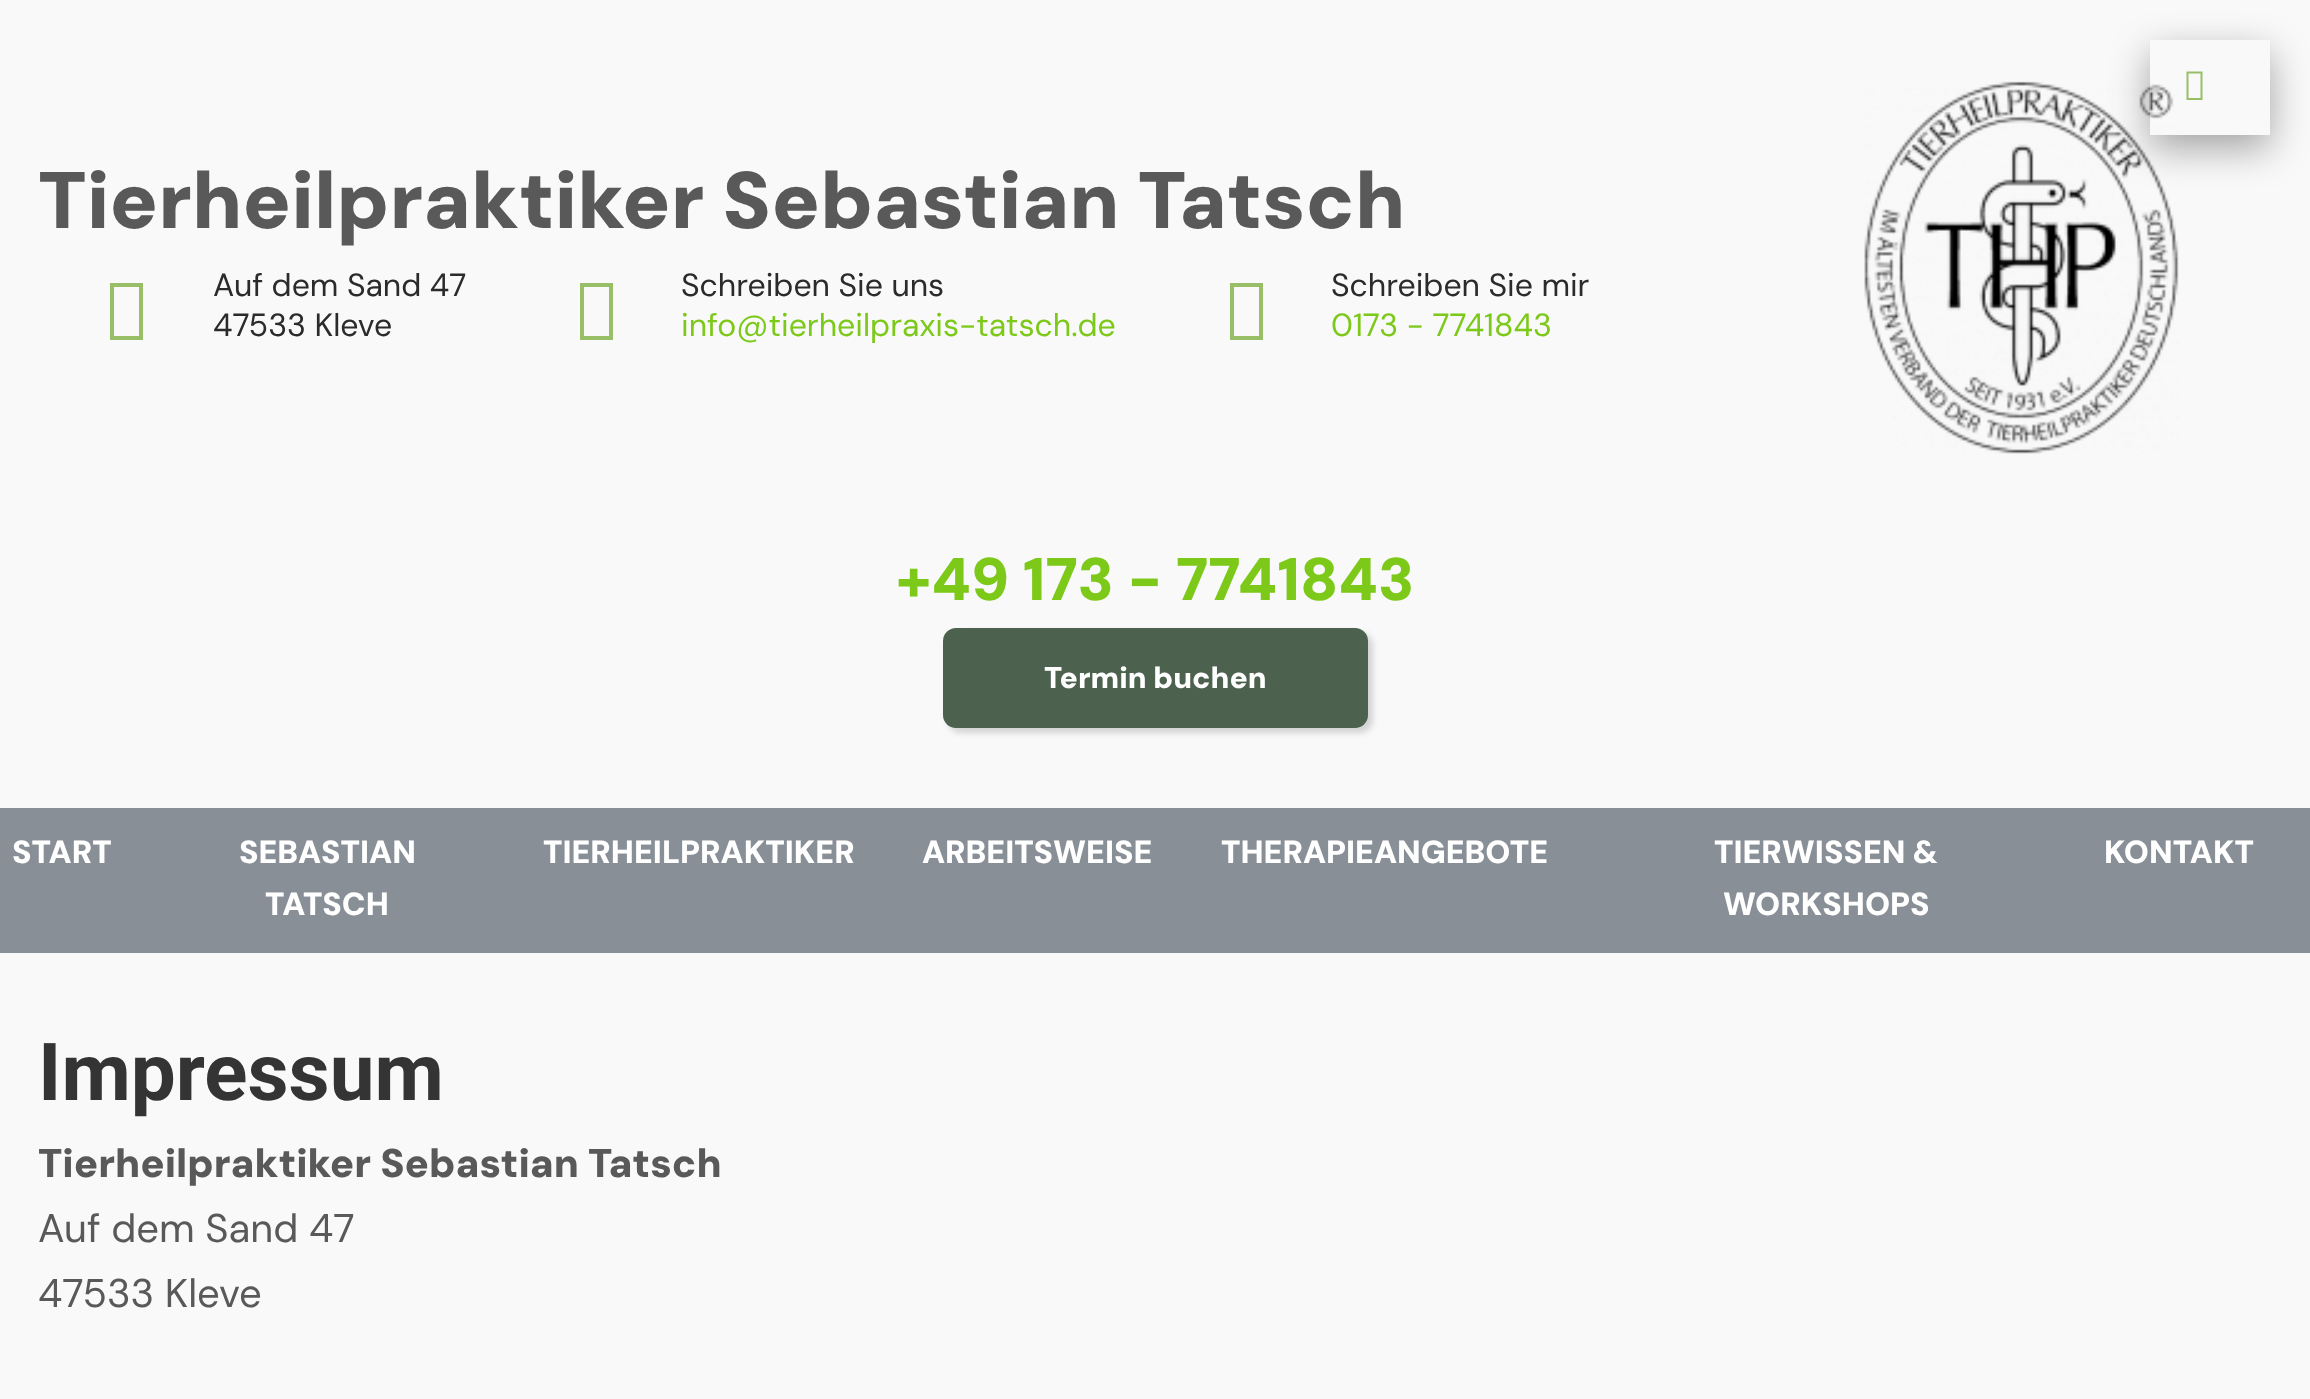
<!DOCTYPE html>
<meta charset="utf-8">
<style>body { margin: 0 } canvas { display: block }</style>
<canvas id="canvas" width="2310" height="1399"></canvas>
<script type="module">
  const canvas = document.getElementById("canvas");
  const ctx = canvas.getContext("2d");
  ctx.miterLimit = 4;
  ctx.fontKerning = "normal";
  async function loadImage(src) {
    const img = new Image();
    img.src = src;
    await img.decode();
    return img;
  }

  ctx.fillStyle = "#f9f9f9";
  ctx.fillRect(0, 0, 2310, 1399);
  ctx.drawImage(await loadImage("img1.png"), 1864, 81, 315, 373);
  ctx.save();
  ctx.beginPath();
  ctx.moveTo(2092, 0);
  ctx.lineTo(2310, 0);
  ctx.lineTo(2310, 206);
  ctx.lineTo(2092, 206);
  ctx.closePath();
  ctx.moveTo(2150, 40);
  ctx.lineTo(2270, 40);
  ctx.lineTo(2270, 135);
  ctx.lineTo(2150, 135);
  ctx.closePath();
  ctx.clip("evenodd");
  ctx.fillStyle = "rgba(0, 0, 0, 0.35)";
  ctx.filter = "blur(19px)";
  ctx.beginPath();
  ctx.rect(2150, 53, 120, 95);
  ctx.fill();
  ctx.filter = "none";
  ctx.restore();
  ctx.fillStyle = "#98bf68";
  ctx.beginPath();
  ctx.moveTo(2186.5, 100);
  ctx.lineTo(2186.5, 71.5);
  ctx.lineTo(2202.5, 71.5);
  ctx.lineTo(2202.5, 100);
  ctx.closePath();
  ctx.moveTo(2188.5, 98);
  ctx.lineTo(2200.5, 98);
  ctx.lineTo(2200.5, 73.5);
  ctx.lineTo(2188.5, 73.5);
  ctx.closePath();
  ctx.fill();
  ctx.font = "900 80px DM Sans";
  ctx.fillStyle = "#595959";
  ctx.fillText("Tierheilpraktiker Sebastian Tatsch", 38, 228);
  ctx.fillStyle = "#98bf68";
  ctx.beginPath();
  ctx.moveTo(110, 340);
  ctx.lineTo(110, 283);
  ctx.lineTo(143, 283);
  ctx.lineTo(143, 340);
  ctx.closePath();
  ctx.moveTo(114, 336);
  ctx.lineTo(139, 336);
  ctx.lineTo(139, 287);
  ctx.lineTo(114, 287);
  ctx.closePath();
  ctx.fill();
  ctx.font = "32px DM Sans";
  ctx.fillStyle = "#2b2b2b";
  ctx.fillText("Auf dem Sand 47", 213, 296);
  ctx.fillText("47533 Kleve", 213, 336);
  ctx.fillStyle = "#98bf68";
  ctx.beginPath();
  ctx.moveTo(580, 340);
  ctx.lineTo(580, 283);
  ctx.lineTo(613, 283);
  ctx.lineTo(613, 340);
  ctx.closePath();
  ctx.moveTo(584, 336);
  ctx.lineTo(609, 336);
  ctx.lineTo(609, 287);
  ctx.lineTo(584, 287);
  ctx.closePath();
  ctx.fill();
  ctx.fillStyle = "#2b2b2b";
  ctx.fillText("Schreiben Sie uns", 681, 296);
  ctx.fillStyle = "#7dc91a";
  ctx.fillText("info@tierheilpraxis-tatsch.de", 681, 336);
  ctx.fillStyle = "#98bf68";
  ctx.beginPath();
  ctx.moveTo(1230, 340);
  ctx.lineTo(1230, 283);
  ctx.lineTo(1263, 283);
  ctx.lineTo(1263, 340);
  ctx.closePath();
  ctx.moveTo(1234, 336);
  ctx.lineTo(1259, 336);
  ctx.lineTo(1259, 287);
  ctx.lineTo(1234, 287);
  ctx.closePath();
  ctx.fill();
  ctx.fillStyle = "#2b2b2b";
  ctx.fillText("Schreiben Sie mir", 1331, 296);
  ctx.fillStyle = "#7dc91a";
  ctx.fillText("0173 - 7741843", 1331, 336);
  ctx.font = "900 60px DM Sans";
  ctx.fillText("+49 173 - 7741843", 896, 600);
  ctx.fillStyle = "rgba(0, 0, 0, 0.15)";
  ctx.filter = "blur(3px)";
  ctx.beginPath();
  ctx.roundRect(948, 633, 425, 100, 13);
  ctx.fill();
  ctx.filter = "none";
  ctx.fillStyle = "#4c624e";
  ctx.beginPath();
  ctx.roundRect(943, 628, 425, 100, 13);
  ctx.fill();
  ctx.font = "900 30px DM Sans";
  ctx.fillStyle = "#ffffff";
  ctx.fillText("Termin buchen", 1044, 688);
  ctx.fillStyle = "#888f97";
  ctx.fillRect(0, 808, 2310, 145);
  ctx.font = "900 32px DM Sans";
  ctx.fillStyle = "#ffffff";
  ctx.fillText("START", 12, 863);
  ctx.fillText("SEBASTIAN", 239, 863);
  ctx.fillText("TATSCH", 265, 915);
  ctx.fillText("TIERHEILPRAKTIKER", 543, 863);
  ctx.fillText("ARBEITSWEISE", 922, 863);
  ctx.fillText("THERAPIEANGEBOTE", 1221, 863);
  ctx.fillText("TIERWISSEN &", 1714, 863);
  ctx.fillText("WORKSHOPS", 1723, 915);
  ctx.fillText("KONTAKT", 2104, 863);
  ctx.font = "bold 80px Roboto";
  ctx.fillStyle = "#343434";
  ctx.fillText("Impressum", 38, 1100);
  ctx.font = "900 40px DM Sans";
  ctx.fillStyle = "#595959";
  ctx.fillText("Tierheilpraktiker Sebastian Tatsch", 38, 1177);
  ctx.font = "40px DM Sans";
  ctx.fillText("Auf dem Sand 47", 38, 1242);
  ctx.fillText("47533 Kleve", 38, 1307);
</script>
